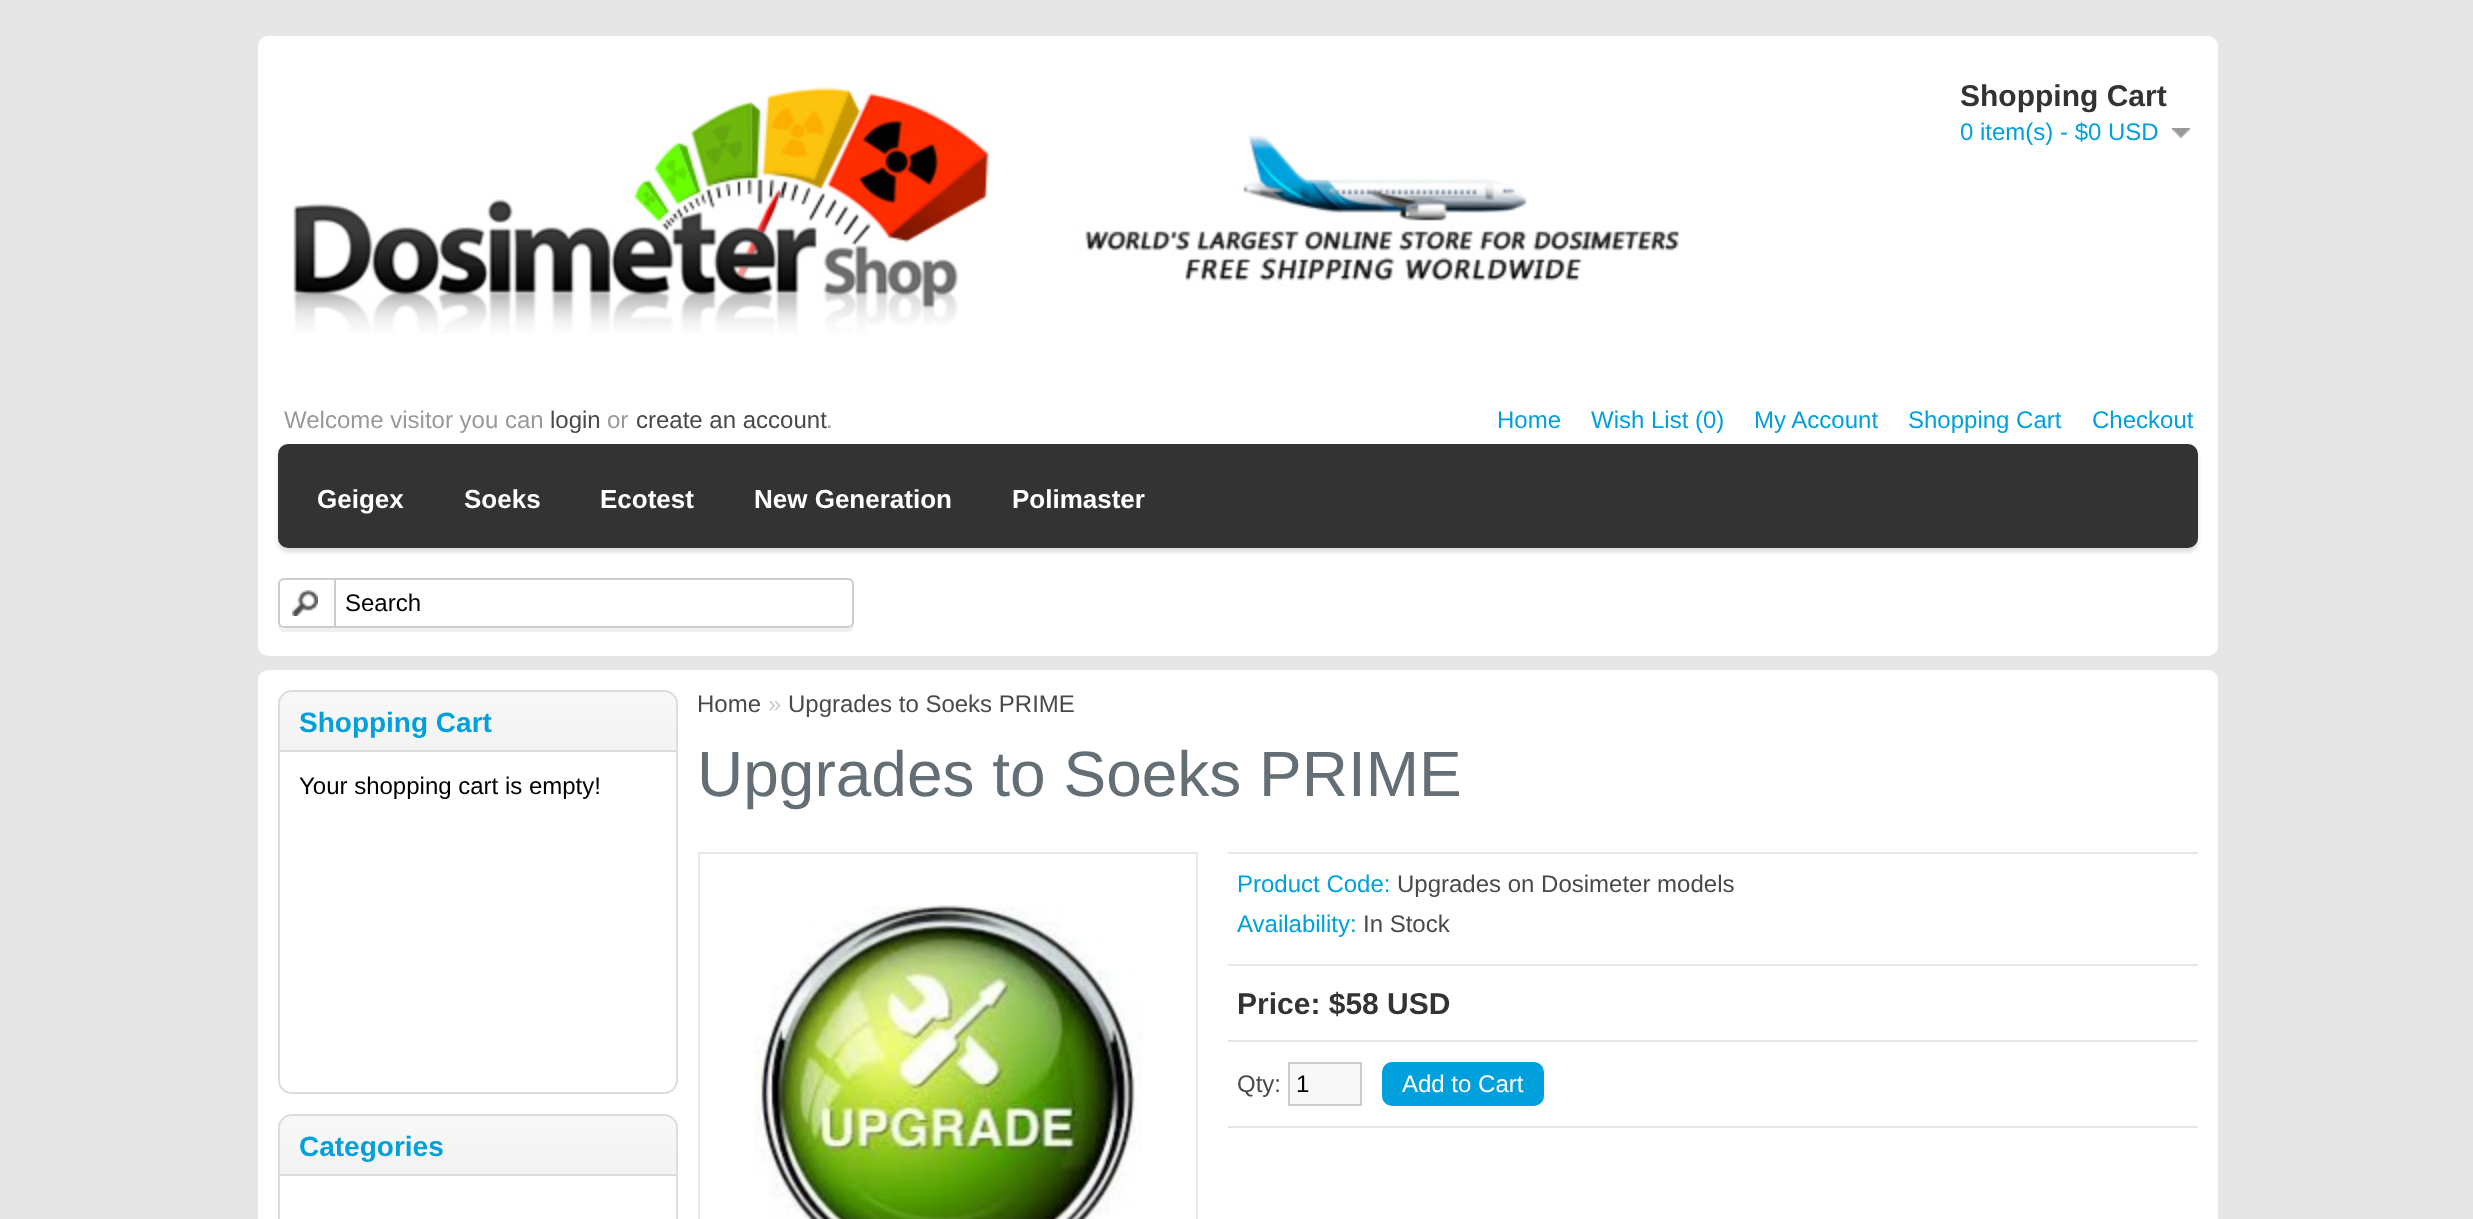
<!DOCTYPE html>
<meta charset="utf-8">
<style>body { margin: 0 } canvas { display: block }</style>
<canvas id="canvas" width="2473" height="1219"></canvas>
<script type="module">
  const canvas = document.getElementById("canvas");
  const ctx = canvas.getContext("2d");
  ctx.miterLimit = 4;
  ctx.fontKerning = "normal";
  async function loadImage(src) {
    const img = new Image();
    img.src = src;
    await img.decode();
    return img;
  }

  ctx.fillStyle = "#e6e6e6";
  ctx.fillRect(0, 0, 2473, 1219);
  ctx.fillStyle = "#ffffff";
  ctx.beginPath();
  ctx.roundRect(258, 36, 1960, 620, 10);
  ctx.fill();
  ctx.drawImage(await loadImage("img1.png"), 293, 87, 1387, 247);
  ctx.font = "bold 30px Liberation Sans";
  ctx.fillStyle = "#333333";
  ctx.fillText("Shopping Cart", 1960, 106);
  ctx.font = "24px Liberation Sans";
  ctx.fillStyle = "#00a0dc";
  ctx.fillText("0 item(s) - $0 USD", 1960, 140);
  ctx.drawImage(await loadImage("img2.png"), 2172, 128, 18, 10);
  ctx.fillStyle = "#999999";
  ctx.fillText("Welcome visitor you can", 284, 428);
  ctx.fillStyle = "#494949";
  ctx.fillText("login", 550, 428);
  ctx.fillStyle = "#999999";
  ctx.fillText("or", 607, 428);
  ctx.fillStyle = "#494949";
  ctx.fillText("create an account", 636, 428);
  ctx.fillStyle = "#999999";
  ctx.fillText(".", 826, 428);
  ctx.fillStyle = "#00a0dc";
  ctx.fillText("Home", 1497, 428);
  ctx.fillText("Wish List (0)", 1591, 428);
  ctx.fillText("My Account", 1754, 428);
  ctx.fillText("Shopping Cart", 1908, 428);
  ctx.fillText("Checkout", 2092, 428);
  ctx.fillStyle = "#dddddd";
  ctx.filter = "blur(2px)";
  ctx.beginPath();
  ctx.roundRect(278, 448, 1920, 104, 10);
  ctx.fill();
  ctx.filter = "none";
  ctx.fillStyle = "#333333";
  ctx.beginPath();
  ctx.roundRect(278, 444, 1920, 104, 10);
  ctx.fill();
  ctx.font = "bold 26px Liberation Sans";
  ctx.fillStyle = "#ffffff";
  ctx.fillText("Geigex", 317, 508);
  ctx.fillText("Soeks", 464, 508);
  ctx.fillText("Ecotest", 600, 508);
  ctx.fillText("New Generation", 754, 508);
  ctx.fillText("Polimaster", 1012, 508);
  ctx.fillStyle = "#f0f0f0";
  ctx.beginPath();
  ctx.moveTo(278, 622);
  ctx.bezierCurveTo(278, 626, 278, 632, 284, 632);
  ctx.lineTo(848, 632);
  ctx.bezierCurveTo(854, 632, 854, 626, 854, 622);
  ctx.bezierCurveTo(854, 625, 851, 628, 848, 628);
  ctx.lineTo(284, 628);
  ctx.bezierCurveTo(281, 628, 278, 625, 278, 622);
  ctx.closePath();
  ctx.fill();
  ctx.fillStyle = "#ffffff";
  ctx.beginPath();
  ctx.roundRect(279, 579, 574, 48, 5);
  ctx.fill();
  ctx.strokeStyle = "#cccccc";
  ctx.lineWidth = 2;
  ctx.stroke();
  ctx.drawImage(await loadImage("img3.png"), 292, 590, 26, 26);
  ctx.fillStyle = "#cccccc";
  ctx.fillRect(334, 578, 2, 50);
  ctx.font = "24px Liberation Sans";
  ctx.fillStyle = "#000000";
  ctx.fillText("Search", 345, 611);
  ctx.fillStyle = "#ffffff";
  ctx.beginPath();
  ctx.roundRect(258, 670, 1960, 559, 10);
  ctx.fill();
  ctx.drawImage(await loadImage("img4.png"), 278, 692, 400, 58);
  ctx.beginPath();
  ctx.roundRect(279, 691, 398, 60, [13, 13, 0, 0]);
  ctx.strokeStyle = "#dbdee1";
  ctx.stroke();
  ctx.font = "bold 28px Liberation Sans";
  ctx.fillStyle = "#00a0dc";
  ctx.fillText("Shopping Cart", 299, 732);
  ctx.fillStyle = "#dbdee1";
  ctx.beginPath();
  ctx.moveTo(278, 752);
  ctx.lineTo(678, 752);
  ctx.lineTo(678, 1080);
  ctx.bezierCurveTo(678, 1088, 672, 1094, 664, 1094);
  ctx.lineTo(292, 1094);
  ctx.bezierCurveTo(284, 1094, 278, 1088, 278, 1080);
  ctx.closePath();
  ctx.moveTo(280, 752);
  ctx.lineTo(676, 752);
  ctx.lineTo(676, 1080);
  ctx.bezierCurveTo(676, 1087, 671, 1092, 664, 1092);
  ctx.lineTo(292, 1092);
  ctx.bezierCurveTo(285, 1092, 280, 1087, 280, 1080);
  ctx.closePath();
  ctx.fill("evenodd");
  ctx.font = "24px Liberation Sans";
  ctx.fillStyle = "#000000";
  ctx.fillText("Your shopping cart is empty!", 299, 794);
  ctx.drawImage(await loadImage("img4.png"), 278, 1116, 400, 58);
  ctx.beginPath();
  ctx.roundRect(279, 1115, 398, 60, [13, 13, 0, 0]);
  ctx.stroke();
  ctx.font = "bold 28px Liberation Sans";
  ctx.fillStyle = "#00a0dc";
  ctx.fillText("Categories", 299, 1156);
  ctx.fillStyle = "#dbdee1";
  ctx.beginPath();
  ctx.moveTo(278, 1176);
  ctx.lineTo(678, 1176);
  ctx.lineTo(678, 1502);
  ctx.bezierCurveTo(678, 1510, 672, 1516, 664, 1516);
  ctx.lineTo(292, 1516);
  ctx.bezierCurveTo(284, 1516, 278, 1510, 278, 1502);
  ctx.closePath();
  ctx.moveTo(280, 1176);
  ctx.lineTo(676, 1176);
  ctx.lineTo(676, 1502);
  ctx.bezierCurveTo(676, 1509, 671, 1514, 664, 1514);
  ctx.lineTo(292, 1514);
  ctx.bezierCurveTo(285, 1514, 280, 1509, 280, 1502);
  ctx.closePath();
  ctx.fill("evenodd");
  ctx.font = "24px Liberation Sans";
  ctx.fillStyle = "#494949";
  ctx.fillText("Home", 697, 712);
  ctx.fillStyle = "#cccccc";
  ctx.fillText("»", 768, 712);
  ctx.fillStyle = "#494949";
  ctx.fillText("Upgrades to Soeks PRIME", 788, 712);
  ctx.font = "64px Liberation Sans";
  ctx.fillStyle = "#636e75";
  ctx.fillText("Upgrades to Soeks PRIME", 697, 796);
  ctx.strokeStyle = "#e7e7e7";
  ctx.strokeRect(699, 853, 498, 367);
  ctx.drawImage(await loadImage("img5.png"), 754, 905, 388, 314);
  ctx.fillStyle = "#e7e7e7";
  ctx.fillRect(1228, 852, 970, 2);
  ctx.fillRect(1228, 964, 970, 2);
  ctx.font = "24px Liberation Sans";
  ctx.fillStyle = "#00a0dc";
  ctx.fillText("Product Code:", 1237, 892);
  ctx.fillStyle = "#494949";
  ctx.fillText("Upgrades on Dosimeter models", 1397, 892);
  ctx.fillStyle = "#00a0dc";
  ctx.fillText("Availability:", 1237, 932);
  ctx.fillStyle = "#494949";
  ctx.fillText("In Stock", 1363, 932);
  ctx.fillStyle = "#e7e7e7";
  ctx.fillRect(1228, 1040, 970, 2);
  ctx.font = "bold 30px Liberation Sans";
  ctx.fillStyle = "#333333";
  ctx.fillText("Price: $58 USD", 1237, 1014);
  ctx.fillStyle = "#e7e7e7";
  ctx.fillRect(1228, 1126, 970, 2);
  ctx.font = "24px Liberation Sans";
  ctx.fillStyle = "#494949";
  ctx.fillText("Qty:", 1237, 1092);
  ctx.fillStyle = "#f8f8f8";
  ctx.beginPath();
  ctx.rect(1289, 1063, 72, 42);
  ctx.fill();
  ctx.strokeStyle = "#cccccc";
  ctx.stroke();
  ctx.fillStyle = "#000000";
  ctx.fillText("1", 1296, 1092);
  ctx.fillStyle = "#00a0dc";
  ctx.beginPath();
  ctx.roundRect(1382, 1062, 162, 44, 10);
  ctx.fill();
  ctx.fillStyle = "#ffffff";
  ctx.fillText("Add to Cart", 1402, 1092);
</script>
